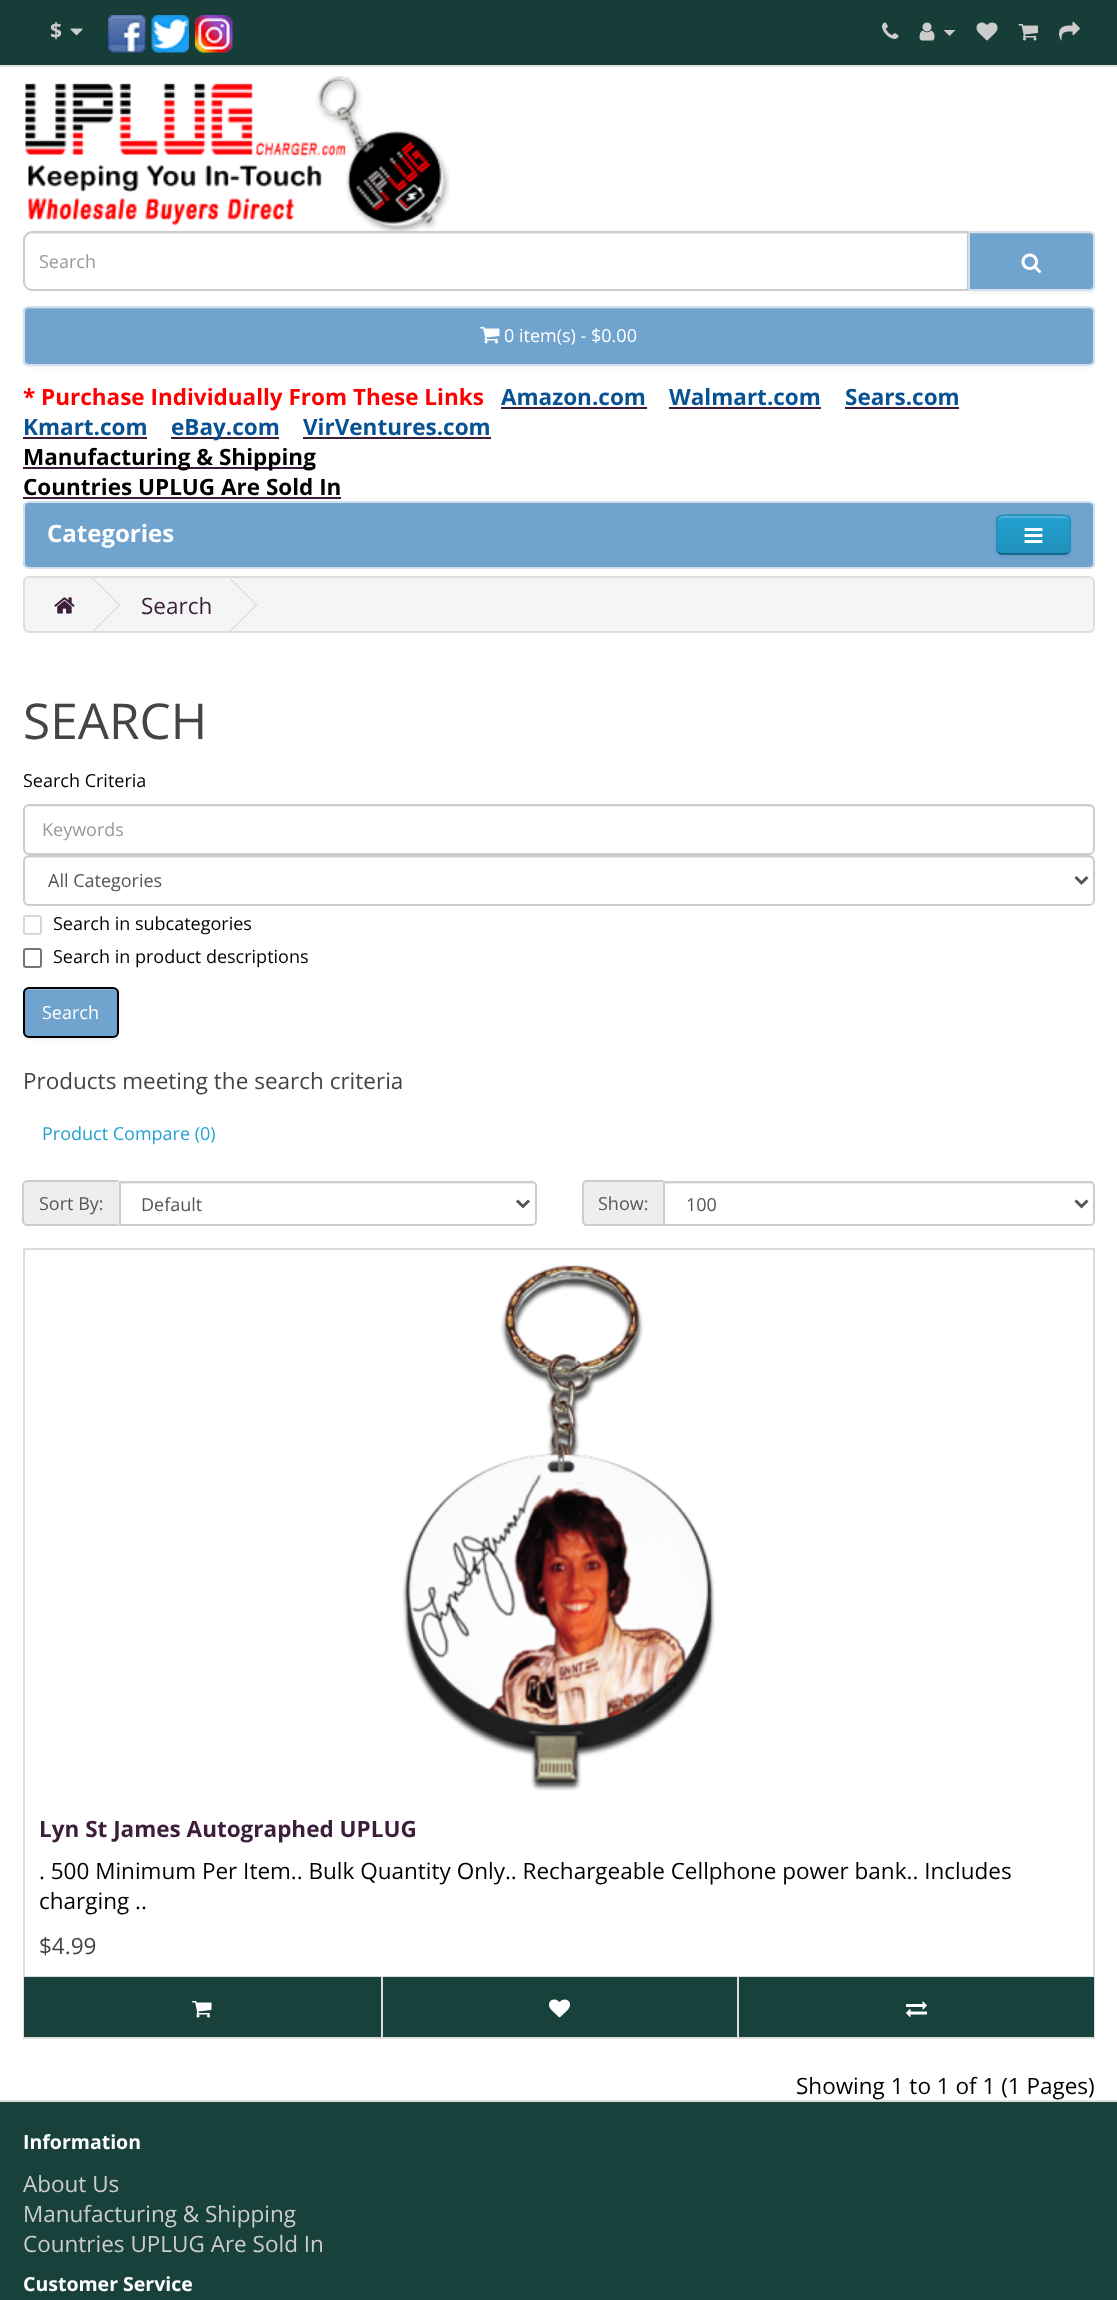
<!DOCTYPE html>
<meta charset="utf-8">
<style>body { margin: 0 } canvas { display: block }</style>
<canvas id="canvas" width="1117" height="2300"></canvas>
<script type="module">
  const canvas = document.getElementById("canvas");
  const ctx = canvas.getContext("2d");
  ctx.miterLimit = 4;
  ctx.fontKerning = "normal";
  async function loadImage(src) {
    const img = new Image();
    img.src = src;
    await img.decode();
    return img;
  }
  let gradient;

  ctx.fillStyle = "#ffffff";
  ctx.fillRect(0, 0, 1117, 2300);
  ctx.fillStyle = "#163d37";
  ctx.fillRect(0, 0, 1117, 65);
  ctx.fillStyle = "#e2e2e2";
  ctx.fillRect(0, 65, 1117, 2);
  ctx.font = "bold 21px Open Sans";
  ctx.fillStyle = "#cccccc";
  ctx.fillText("$", 50, 38);
  ctx.drawImage(await loadImage("img1.png"), 70, 28, 13, 8);
  ctx.drawImage(await loadImage("img2.png"), 108, 15, 38, 38);
  ctx.drawImage(await loadImage("img3.png"), 151, 15, 38, 38);
  ctx.drawImage(await loadImage("img4.png"), 195, 15, 38, 38);
  ctx.drawImage(await loadImage("img5.png"), 882, 22, 17, 17);
  ctx.drawImage(await loadImage("img6.png"), 919, 22, 16, 19);
  ctx.beginPath();
  ctx.moveTo(943.5, 30);
  ctx.lineTo(955.5, 30);
  ctx.lineTo(949.5, 36);
  ctx.closePath();
  ctx.fill();
  ctx.drawImage(await loadImage("img7.png"), 976, 22, 22, 19);
  ctx.drawImage(await loadImage("img8.png"), 1018, 24, 20, 17);
  ctx.drawImage(await loadImage("img9.png"), 1059, 21, 21, 20);
  ctx.drawImage(await loadImage("img10.png"), 25, 76, 425, 155);
  ctx.fillStyle = "#ececec";
  ctx.beginPath();
  ctx.moveTo(32, 234);
  ctx.lineTo(968, 234);
  ctx.lineTo(968, 233);
  ctx.lineTo(32, 233);
  ctx.bezierCurveTo(27, 233, 24, 237, 24, 242);
  ctx.bezierCurveTo(24, 237, 27, 234, 32, 234);
  ctx.closePath();
  ctx.fill();
  ctx.beginPath();
  ctx.roundRect(24, 232, 944, 58, [8, 0, 0, 8]);
  ctx.strokeStyle = "#cccccc";
  ctx.lineWidth = 2;
  ctx.stroke();
  ctx.font = "18px Open Sans";
  ctx.fillStyle = "#999999";
  ctx.fillText("Search", 39, 268);
  ctx.fillStyle = "rgba(0, 0, 0, 0.05)";
  ctx.filter = "blur(1.5px)";
  ctx.beginPath();
  ctx.roundRect(968, 233, 127, 60, 6);
  ctx.fill();
  ctx.filter = "none";
  ctx.save();
  ctx.beginPath();
  ctx.roundRect(968, 231, 127, 60, [0, 6, 6, 0]);
  ctx.clip();
  ctx.fillStyle = "#70a3ce";
  ctx.fillRect(970, 233, 125, 57);
  ctx.restore();
  ctx.fillStyle = "#8db5d8";
  ctx.beginPath();
  ctx.moveTo(969, 234);
  ctx.lineTo(1089, 234);
  ctx.bezierCurveTo(1091, 234, 1094, 236, 1094, 238);
  ctx.bezierCurveTo(1094, 235, 1092, 233, 1089, 233);
  ctx.lineTo(969, 233);
  ctx.closePath();
  ctx.fill();
  ctx.beginPath();
  ctx.roundRect(969, 232, 125, 58, [0, 5, 5, 0]);
  ctx.strokeStyle = "#d1e0ec";
  ctx.stroke();
  ctx.drawImage(await loadImage("img11.png"), 1021, 253, 20, 20);
  ctx.fillStyle = "rgba(0, 0, 0, 0.05)";
  ctx.filter = "blur(1.5px)";
  ctx.beginPath();
  ctx.roundRect(23, 308, 1072, 60, 6);
  ctx.fill();
  ctx.filter = "none";
  ctx.save();
  ctx.beginPath();
  ctx.roundRect(23, 306, 1072, 60, 6);
  ctx.clip();
  ctx.fillStyle = "#70a3ce";
  ctx.fillRect(23, 308, 1072, 57);
  ctx.restore();
  ctx.fillStyle = "#8db5d8";
  ctx.beginPath();
  ctx.moveTo(28, 309);
  ctx.lineTo(1089, 309);
  ctx.bezierCurveTo(1091, 309, 1094, 311, 1094, 314);
  ctx.bezierCurveTo(1094, 311, 1092, 308, 1089, 308);
  ctx.lineTo(29, 308);
  ctx.bezierCurveTo(26, 308, 24, 311, 24, 314);
  ctx.bezierCurveTo(24, 311, 26, 309, 28, 309);
  ctx.closePath();
  ctx.fill();
  ctx.beginPath();
  ctx.roundRect(24, 307, 1070, 58, 5);
  ctx.stroke();
  ctx.drawImage(await loadImage("img12.png"), 480, 327, 20, 17);
  ctx.fillStyle = "#ffffff";
  ctx.fillText("0 item(s) - $0.00", 504, 342);
  ctx.font = "bold 22.5px Open Sans";
  ctx.fillStyle = "#ff0000";
  ctx.fillText("* Purchase Individually From These Links", 23, 405);
  ctx.fillStyle = "#085294";
  ctx.fillText("Amazon.com", 501, 405);
  ctx.fillStyle = "#3c1d3a";
  ctx.fillRect(501, 407, 146, 2);
  ctx.fillStyle = "#085294";
  ctx.fillText("Walmart.com", 669, 405);
  ctx.fillStyle = "#3c1d3a";
  ctx.fillRect(669, 407, 152, 2);
  ctx.fillStyle = "#085294";
  ctx.fillText("Sears.com", 845, 405);
  ctx.fillStyle = "#3c1d3a";
  ctx.fillRect(845, 407, 114, 2);
  ctx.fillStyle = "#085294";
  ctx.fillText("Kmart.com", 23, 435);
  ctx.fillStyle = "#3c1d3a";
  ctx.fillRect(23, 437, 124, 2);
  ctx.fillRect(171, 437, 108, 2);
  ctx.fillStyle = "#085294";
  ctx.fillText("eBay.com", 171, 435);
  ctx.fillText("VirVentures.com", 303, 435);
  ctx.fillStyle = "#3c1d3a";
  ctx.fillRect(303, 437, 188, 2);
  ctx.fillRect(23, 467, 292, 2);
  ctx.fillStyle = "#000000";
  ctx.fillText("Manufacturing & Shipping", 23, 465);
  ctx.fillText("Countries UPLUG Are Sold In", 23, 495);
  ctx.fillStyle = "#3c1d3a";
  ctx.fillRect(23, 497, 318, 2);
  ctx.save();
  ctx.beginPath();
  ctx.roundRect(23, 501, 1072, 68, 6);
  ctx.clip();
  ctx.fillStyle = "#70a3ce";
  ctx.fillRect(23, 503, 1072, 64);
  ctx.restore();
  ctx.beginPath();
  ctx.roundRect(24, 502, 1070, 66, 5);
  ctx.stroke();
  ctx.font = "bold 24px Open Sans";
  ctx.fillStyle = "#ffffff";
  ctx.fillText("Categories", 47, 542);
  ctx.fillStyle = "rgba(0, 0, 0, 0.05)";
  ctx.filter = "blur(1.5px)";
  ctx.beginPath();
  ctx.roundRect(996, 516, 75, 41, 6);
  ctx.fill();
  ctx.filter = "none";
  ctx.fillStyle = "#229ac8";
  ctx.beginPath();
  ctx.roundRect(996, 515, 75, 40, 6);
  ctx.fill();
  ctx.save();
  ctx.beginPath();
  ctx.roundRect(996, 515, 75, 40, 6);
  ctx.clip();
  gradient = ctx.createLinearGradient(1034, 516, 1034, 554);
  gradient.addColorStop(0, "#23a1d1");
  gradient.addColorStop(1, "#1f90bb");
  ctx.fillStyle = gradient;
  ctx.fillRect(996, 516, 75, 38);
  ctx.restore();
  ctx.fillStyle = "#4fb3da";
  ctx.beginPath();
  ctx.moveTo(1002, 518);
  ctx.lineTo(1065, 518);
  ctx.bezierCurveTo(1067, 518, 1070, 520, 1070, 522);
  ctx.bezierCurveTo(1070, 514, 1060, 516, 1055, 516);
  ctx.lineTo(1013, 516);
  ctx.bezierCurveTo(1008, 516, 998, 514, 998, 522);
  ctx.bezierCurveTo(998, 520, 1000, 518, 1002, 518);
  ctx.closePath();
  ctx.fill();
  ctx.beginPath();
  ctx.moveTo(1068.5, 552.5);
  ctx.bezierCurveTo(1067.5, 553.5, 1066.5, 554, 1065, 554);
  ctx.lineTo(1002, 554);
  ctx.bezierCurveTo(1000.5, 554, 999.5, 553.5, 998.5, 552.5);
  ctx.strokeStyle = "#145e7a";
  ctx.lineWidth = 1.5;
  ctx.stroke();
  ctx.beginPath();
  ctx.moveTo(998.5, 552.5);
  ctx.bezierCurveTo(996, 550.5, 997, 547, 997, 544);
  ctx.lineTo(997, 535);
  ctx.bezierCurveTo(997, 515, 993.5, 515, 1012.5, 515);
  ctx.lineTo(1054.5, 515);
  ctx.bezierCurveTo(1073.5, 515, 1070, 515, 1070, 535);
  ctx.lineTo(1070, 544);
  ctx.bezierCurveTo(1070, 547, 1071, 550.5, 1068.5, 552.5);
  ctx.strokeStyle = "#1f90bb";
  ctx.stroke();
  ctx.drawImage(await loadImage("img13.png"), 1024, 528, 19, 15);
  ctx.fillStyle = "#f5f5f5";
  ctx.beginPath();
  ctx.roundRect(24, 577, 1070, 55, 5);
  ctx.fill();
  ctx.strokeStyle = "#dddddd";
  ctx.lineWidth = 2;
  ctx.stroke();
  ctx.drawImage(await loadImage("img14.png"), 54, 597, 21, 17);
  ctx.fillStyle = "#dddddd";
  ctx.beginPath();
  ctx.moveTo(92, 578.5);
  ctx.lineTo(93, 577.5);
  ctx.lineTo(120.5, 605);
  ctx.lineTo(119.5, 606);
  ctx.closePath();
  ctx.fill();
  ctx.beginPath();
  ctx.moveTo(92, 631.5);
  ctx.lineTo(119.5, 604);
  ctx.lineTo(120.5, 605);
  ctx.lineTo(93, 632.5);
  ctx.closePath();
  ctx.fill();
  ctx.font = "22.5px Open Sans";
  ctx.fillStyle = "#3c1d3a";
  ctx.fillText("Search", 141, 614);
  ctx.fillStyle = "#dddddd";
  ctx.beginPath();
  ctx.moveTo(229, 578.5);
  ctx.lineTo(230, 577.5);
  ctx.lineTo(257.5, 605);
  ctx.lineTo(256.5, 606);
  ctx.closePath();
  ctx.fill();
  ctx.beginPath();
  ctx.moveTo(229, 631.5);
  ctx.lineTo(256.5, 604);
  ctx.lineTo(257.5, 605);
  ctx.lineTo(230, 632.5);
  ctx.closePath();
  ctx.fill();
  ctx.font = "49.5px Open Sans";
  ctx.fillStyle = "#444444";
  ctx.fillText("SEARCH", 23, 739);
  ctx.font = "18px Open Sans";
  ctx.fillStyle = "#000000";
  ctx.fillText("Search Criteria", 23, 787);
  ctx.fillStyle = "#ececec";
  ctx.beginPath();
  ctx.moveTo(28, 807);
  ctx.lineTo(1089, 807);
  ctx.bezierCurveTo(1091, 807, 1094, 809, 1094, 812);
  ctx.bezierCurveTo(1094, 809, 1092, 806, 1089, 806);
  ctx.lineTo(29, 806);
  ctx.bezierCurveTo(26, 806, 24, 809, 24, 812);
  ctx.bezierCurveTo(24, 809, 26, 807, 28, 807);
  ctx.closePath();
  ctx.fill();
  ctx.beginPath();
  ctx.roundRect(24, 805, 1070, 49, 5);
  ctx.strokeStyle = "#cccccc";
  ctx.stroke();
  ctx.fillStyle = "#999999";
  ctx.fillText("Keywords", 42, 836);
  ctx.fillStyle = "#ececec";
  ctx.beginPath();
  ctx.moveTo(28, 858);
  ctx.lineTo(1089, 858);
  ctx.bezierCurveTo(1091, 858, 1094, 860, 1094, 862);
  ctx.bezierCurveTo(1094, 859, 1092, 857, 1089, 857);
  ctx.lineTo(29, 857);
  ctx.bezierCurveTo(26, 857, 24, 859, 24, 862);
  ctx.bezierCurveTo(24, 860, 26, 858, 28, 858);
  ctx.closePath();
  ctx.fill();
  ctx.beginPath();
  ctx.roundRect(24, 856, 1070, 49, 5);
  ctx.stroke();
  ctx.beginPath();
  ctx.moveTo(1075.5, 877);
  ctx.lineTo(1081.5, 883);
  ctx.lineTo(1087.5, 877);
  ctx.strokeStyle = "#555555";
  ctx.lineWidth = 3;
  ctx.stroke();
  ctx.fillStyle = "#555555";
  ctx.fillText("All Categories", 48, 887);
  ctx.beginPath();
  ctx.roundRect(24, 916, 17, 18, 2);
  ctx.strokeStyle = "#d6d6d6";
  ctx.lineWidth = 2;
  ctx.stroke();
  ctx.fillStyle = "#000000";
  ctx.fillText("Search in subcategories", 53, 930);
  ctx.beginPath();
  ctx.roundRect(24, 949, 17, 18, 2);
  ctx.strokeStyle = "#767676";
  ctx.stroke();
  ctx.fillText("Search in product descriptions", 53, 963);
  ctx.fillStyle = "rgba(0, 0, 0, 0.05)";
  ctx.filter = "blur(1.5px)";
  ctx.beginPath();
  ctx.roundRect(23, 989, 96, 51, 6);
  ctx.fill();
  ctx.filter = "none";
  ctx.save();
  ctx.beginPath();
  ctx.roundRect(23, 987, 96, 51, 6);
  ctx.clip();
  ctx.fillStyle = "#70a3ce";
  ctx.fillRect(23, 989, 96, 48);
  ctx.restore();
  ctx.fillStyle = "#8db5d8";
  ctx.beginPath();
  ctx.moveTo(28, 990);
  ctx.lineTo(112, 990);
  ctx.bezierCurveTo(115, 990, 117, 992, 117, 994);
  ctx.bezierCurveTo(117, 991, 115, 989, 112, 989);
  ctx.lineTo(29, 989);
  ctx.bezierCurveTo(26, 989, 24, 991, 24, 994);
  ctx.bezierCurveTo(24, 992, 26, 990, 28, 990);
  ctx.closePath();
  ctx.fill();
  ctx.beginPath();
  ctx.roundRect(24, 988, 94, 49, 5);
  ctx.strokeStyle = "#000000";
  ctx.stroke();
  ctx.fillStyle = "#ffffff";
  ctx.fillText("Search", 42, 1019);
  ctx.font = "22.5px Open Sans";
  ctx.fillStyle = "#444444";
  ctx.fillText("Products meeting the search criteria", 23, 1089);
  ctx.font = "18px Open Sans";
  ctx.fillStyle = "#23a1d1";
  ctx.fillText("Product Compare (0)", 42, 1140);
  ctx.fillStyle = "#eeeeee";
  ctx.beginPath();
  ctx.roundRect(23, 1181, 96, 45, [5, 0, 0, 5]);
  ctx.fill();
  ctx.fillStyle = "#cccccc";
  ctx.beginPath();
  ctx.moveTo(27, 1180);
  ctx.lineTo(118, 1180);
  ctx.lineTo(118, 1226);
  ctx.lineTo(27, 1226);
  ctx.bezierCurveTo(25, 1226, 22, 1223, 22, 1221);
  ctx.lineTo(22, 1185);
  ctx.bezierCurveTo(22, 1183, 25, 1180, 27, 1180);
  ctx.closePath();
  ctx.moveTo(27, 1182);
  ctx.lineTo(118, 1182);
  ctx.lineTo(118, 1224);
  ctx.lineTo(27, 1224);
  ctx.bezierCurveTo(25, 1224, 24, 1223, 24, 1221);
  ctx.lineTo(24, 1185);
  ctx.bezierCurveTo(24, 1183, 25, 1182, 27, 1182);
  ctx.closePath();
  ctx.fill("evenodd");
  ctx.fillStyle = "#555555";
  ctx.fillText("Sort By:", 39, 1210);
  ctx.fillStyle = "#ececec";
  ctx.beginPath();
  ctx.moveTo(120, 1184);
  ctx.lineTo(532, 1184);
  ctx.bezierCurveTo(534, 1184, 536, 1185, 536, 1186);
  ctx.bezierCurveTo(536, 1184, 535, 1182, 533, 1182);
  ctx.lineTo(120, 1182);
  ctx.closePath();
  ctx.fill();
  ctx.beginPath();
  ctx.roundRect(120, 1182, 416, 43, [0, 4, 4, 0]);
  ctx.strokeStyle = "#cccccc";
  ctx.stroke();
  ctx.beginPath();
  ctx.moveTo(517, 1200.5);
  ctx.lineTo(523, 1206.5);
  ctx.lineTo(529, 1200.5);
  ctx.strokeStyle = "#555555";
  ctx.lineWidth = 3;
  ctx.stroke();
  ctx.fillStyle = "#555555";
  ctx.fillText("Default", 141, 1211);
  ctx.fillStyle = "#eeeeee";
  ctx.beginPath();
  ctx.roundRect(582, 1181, 81, 45, [5, 0, 0, 5]);
  ctx.fill();
  ctx.fillStyle = "#cccccc";
  ctx.beginPath();
  ctx.moveTo(586, 1180);
  ctx.lineTo(663, 1180);
  ctx.lineTo(663, 1226);
  ctx.lineTo(586, 1226);
  ctx.bezierCurveTo(584, 1226, 582, 1223, 582, 1221);
  ctx.lineTo(582, 1185);
  ctx.bezierCurveTo(582, 1183, 584, 1180, 586, 1180);
  ctx.closePath();
  ctx.moveTo(586, 1182);
  ctx.lineTo(663, 1182);
  ctx.lineTo(663, 1224);
  ctx.lineTo(586, 1224);
  ctx.bezierCurveTo(585, 1224, 584, 1223, 584, 1221);
  ctx.lineTo(584, 1185);
  ctx.bezierCurveTo(584, 1183, 585, 1182, 586, 1182);
  ctx.closePath();
  ctx.fill("evenodd");
  ctx.fillStyle = "#555555";
  ctx.fillText("Show:", 598, 1210);
  ctx.fillStyle = "#ececec";
  ctx.beginPath();
  ctx.moveTo(665, 1182);
  ctx.lineTo(665, 1184);
  ctx.lineTo(1090, 1184);
  ctx.bezierCurveTo(1092, 1184, 1094, 1185, 1094, 1186);
  ctx.bezierCurveTo(1094, 1184, 1093, 1182, 1091, 1182);
  ctx.closePath();
  ctx.fill();
  ctx.beginPath();
  ctx.roundRect(664, 1182, 430, 43, [0, 4, 4, 0]);
  ctx.strokeStyle = "#cccccc";
  ctx.lineWidth = 2;
  ctx.stroke();
  ctx.beginPath();
  ctx.moveTo(1075.5, 1200.5);
  ctx.lineTo(1081.5, 1206.5);
  ctx.lineTo(1087.5, 1200.5);
  ctx.strokeStyle = "#555555";
  ctx.lineWidth = 3;
  ctx.stroke();
  ctx.fillStyle = "#555555";
  ctx.fillText("100", 686, 1211);
  ctx.strokeStyle = "#dddddd";
  ctx.lineWidth = 2;
  ctx.strokeRect(24, 1249, 1070, 789);
  ctx.drawImage(await loadImage("img15.png"), 402, 1265, 313, 526);
  ctx.font = "bold 22.5px Open Sans";
  ctx.fillStyle = "#3c1d3a";
  ctx.fillText("Lyn St James Autographed UPLUG", 39, 1837);
  ctx.font = "22.5px Open Sans";
  ctx.fillStyle = "#000000";
  ctx.fillText(". 500 Minimum Per Item.. Bulk Quantity Only.. Rechargeable Cellphone power bank.. Includes", 39, 1879);
  ctx.fillText("charging ..", 39, 1909);
  ctx.fillStyle = "#444444";
  ctx.fillText("$4.99", 39, 1954);
  ctx.fillStyle = "#dddddd";
  ctx.fillRect(24, 1976, 1070, 1);
  ctx.fillStyle = "#19413b";
  ctx.fillRect(24, 1977, 357, 60);
  ctx.drawImage(await loadImage("img16.png"), 192, 2001, 20, 17);
  ctx.fillRect(383, 1977, 354, 60);
  ctx.fillStyle = "#dddddd";
  ctx.fillRect(381, 1977, 2, 60);
  ctx.drawImage(await loadImage("img17.png"), 549, 1999, 21, 19);
  ctx.fillStyle = "#19413b";
  ctx.fillRect(739, 1977, 355, 60);
  ctx.fillStyle = "#dddddd";
  ctx.fillRect(737, 1977, 2, 60);
  ctx.drawImage(await loadImage("img18.png"), 906, 2001, 21, 17);
  ctx.fillStyle = "#000000";
  ctx.fillText("Showing 1 to 1 of 1 (1 Pages)", 796, 2094);
  ctx.fillStyle = "#19413b";
  ctx.fillRect(0, 2102, 1117, 198);
  ctx.fillStyle = "#dddddd";
  ctx.fillRect(0, 2100, 1117, 2);
  ctx.font = "bold 19.5px Open Sans";
  ctx.fillStyle = "#ffffff";
  ctx.fillText("Information", 23, 2149);
  ctx.font = "22.5px Open Sans";
  ctx.fillStyle = "#cccccc";
  ctx.fillText("About Us", 23, 2192);
  ctx.fillText("Manufacturing & Shipping", 23, 2222);
  ctx.fillText("Countries UPLUG Are Sold In", 23, 2252);
  ctx.font = "bold 19.5px Open Sans";
  ctx.fillStyle = "#ffffff";
  ctx.fillText("Customer Service", 23, 2291);
</script>
